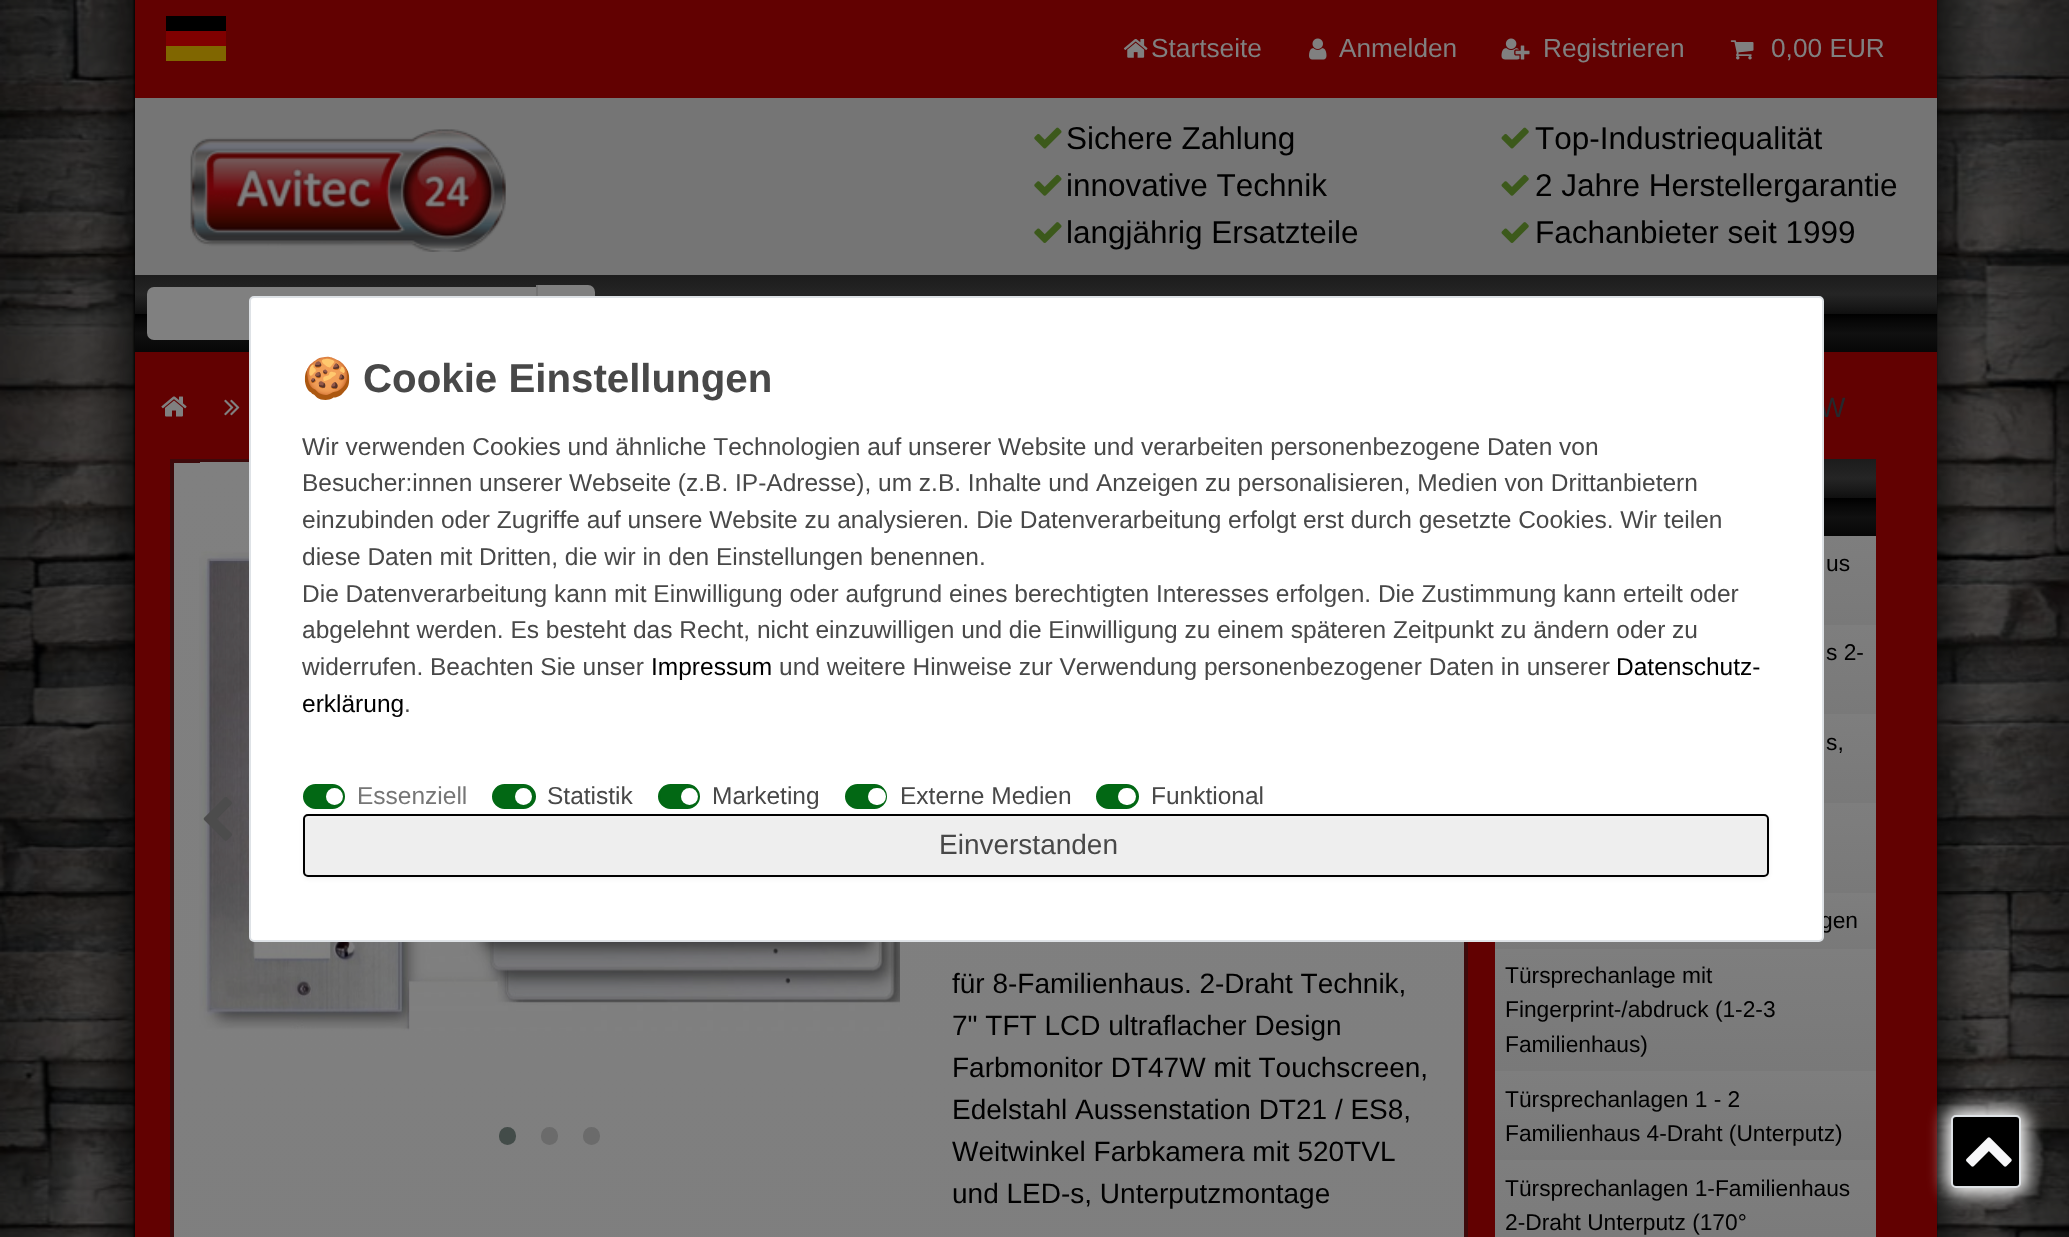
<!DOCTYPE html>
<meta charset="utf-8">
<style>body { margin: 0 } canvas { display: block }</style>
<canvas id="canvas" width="2069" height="1237"></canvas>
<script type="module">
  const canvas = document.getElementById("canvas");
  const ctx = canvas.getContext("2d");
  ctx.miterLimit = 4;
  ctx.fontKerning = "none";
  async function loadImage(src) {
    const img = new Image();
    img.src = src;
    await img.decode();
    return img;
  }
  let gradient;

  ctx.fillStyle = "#ffffff";
  ctx.fillRect(0, 0, 2069, 1237);
  ctx.drawImage(await loadImage("img1.png"), 0, 0, 2069, 1237);
  ctx.fillStyle = "#620101";
  ctx.fillRect(135, 352, 1802, 885);
  ctx.fillRect(135, 0, 1802, 98);
  ctx.fillStyle = "#806600";
  ctx.fillRect(166, 46, 60, 15);
  ctx.fillStyle = "#000000";
  ctx.fillRect(166, 16, 60, 15);
  ctx.fillStyle = "#800000";
  ctx.fillRect(166, 31, 60, 15);
  ctx.drawImage(await loadImage("img2.png"), 1123, 39, 25, 19);
  ctx.font = "26.25px Liberation Sans";
  ctx.fillStyle = "#808080";
  ctx.fillText("Startseite", 1151, 57);
  ctx.drawImage(await loadImage("img3.png"), 1309, 38, 18, 22);
  ctx.fillText("Anmelden", 1339, 57);
  ctx.drawImage(await loadImage("img4.png"), 1501, 38, 29, 22);
  ctx.fillText("Registrieren", 1543, 57);
  ctx.drawImage(await loadImage("img5.png"), 1730, 40, 24, 20);
  ctx.fillText("0,00 EUR", 1771, 57);
  ctx.fillStyle = "#757575";
  ctx.fillRect(135, 98, 1802, 177);
  ctx.drawImage(await loadImage("img6.png"), 190, 129, 316, 123);
  ctx.drawImage(await loadImage("img7.png"), 1034, 127, 28, 22);
  ctx.font = "31.5px Liberation Sans";
  ctx.fillStyle = "#000000";
  ctx.fillText("Sichere Zahlung", 1066, 149);
  ctx.drawImage(await loadImage("img8.png"), 1501, 127, 28, 22);
  ctx.fillText("Top-Industriequalität", 1535, 149);
  ctx.drawImage(await loadImage("img9.png"), 1034, 174, 28, 22);
  ctx.fillText("innovative Technik", 1066, 196);
  ctx.drawImage(await loadImage("img10.png"), 1501, 174, 28, 22);
  ctx.fillText("2 Jahre Herstellergarantie", 1535, 196);
  ctx.drawImage(await loadImage("img11.png"), 1034, 222, 28, 21);
  ctx.fillText("langjährig Ersatzteile", 1066, 243);
  ctx.drawImage(await loadImage("img12.png"), 1501, 222, 28, 21);
  ctx.fillText("Fachanbieter seit 1999", 1535, 243);
  gradient = ctx.createLinearGradient(1036, 275, 1036, 352);
  gradient.addColorStop(0, "#1c1c1c");
  gradient.addColorStop(0.12, "#202020");
  gradient.addColorStop(0.25, "#252525");
  gradient.addColorStop(0.39, "#1a1a1a");
  gradient.addColorStop(0.5, "#101010");
  gradient.addColorStop(0.51, "#000000");
  gradient.addColorStop(0.6, "#070707");
  gradient.addColorStop(0.76, "#101010");
  gradient.addColorStop(0.91, "#0a0a0a");
  gradient.addColorStop(1, "#070707");
  ctx.fillStyle = gradient;
  ctx.fillRect(135, 275, 1802, 77);
  ctx.fillStyle = "#808080";
  ctx.beginPath();
  ctx.roundRect(147, 287, 394, 53, [7, 0, 0, 7]);
  ctx.fill();
  ctx.beginPath();
  ctx.roundRect(536, 285, 59, 53, [0, 7, 7, 0]);
  ctx.fill();
  ctx.fillStyle = "#737373";
  ctx.fillRect(536, 285, 2, 11);
  ctx.font = "28px Liberation Sans";
  ctx.fillStyle = "#25282c";
  ctx.fillText("W", 1819, 417);
  gradient = ctx.createLinearGradient(819, 462, 819, 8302);
  gradient.addColorStop(0, "#808080");
  gradient.addColorStop(1, "#737373");
  ctx.fillStyle = gradient;
  ctx.fillRect(174, 463, 1290, 774);
  ctx.strokeStyle = "#3d0a0b";
  ctx.lineWidth = 4;
  ctx.strokeRect(172, 461, 1294, 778);
  ctx.fillStyle = "#808080";
  ctx.fillRect(200, 462, 700, 1);
  ctx.drawImage(await loadImage("img16.png"), 199, 551, 701, 480);
  gradient = ctx.createLinearGradient(1685, 893, 1685, 949);
  gradient.addColorStop(0, "#7e7e7e");
  gradient.addColorStop(1, "#797979");
  ctx.fillStyle = gradient;
  ctx.fillRect(1495, 893, 381, 56);
  ctx.font = "22.75px Liberation Sans";
  ctx.fillStyle = "#000000";
  ctx.fillText("gen", 1820, 928);
  ctx.fillStyle = "#ffffff";
  ctx.beginPath();
  ctx.roundRect(250, 297, 1573, 644, 4);
  ctx.fill();
  ctx.strokeStyle = "#dee2e6";
  ctx.lineWidth = 2;
  ctx.stroke();
  ctx.font = "bold 40.25px Noto Color Emoji";
  ctx.fillStyle = "#484848";
  ctx.fillText("🍪", 302, 392);
  ctx.font = "bold 40.25px Liberation Sans";
  ctx.fillText("Cookie Einstellungen", 363, 392);
  ctx.font = "24.5px Liberation Sans";
  ctx.fillText("Wir verwenden Cookies und ähnliche Technologien auf unserer Website und verarbeiten personenbezogene Daten von", 302, 455);
  ctx.fillText("Besucher:innen unserer Webseite (z.B. IP-Adresse), um z.B. Inhalte und Anzeigen zu personalisieren, Medien von Drittanbietern", 302, 491);
  ctx.fillText("einzubinden oder Zugriffe auf unsere Website zu analysieren. Die Datenverarbeitung erfolgt erst durch gesetzte Cookies. Wir teilen", 302, 528);
  ctx.fillText("diese Daten mit Dritten, die wir in den Einstellungen benennen.", 302, 565);
  ctx.fillText("Die Datenverarbeitung kann mit Einwilligung oder aufgrund eines berechtigten Interesses erfolgen. Die Zustimmung kann erteilt oder", 302, 602);
  ctx.fillText("abgelehnt werden. Es besteht das Recht, nicht einzuwilligen und die Einwilligung zu einem späteren Zeitpunkt zu ändern oder zu", 302, 638);
  ctx.fillText("widerrufen. Beachten Sie unser", 302, 675);
  ctx.fillStyle = "#000000";
  ctx.fillText("Impressum", 651, 675);
  ctx.fillStyle = "#484848";
  ctx.fillText("und weitere Hinweise zur Verwendung personenbezogener Daten in unserer", 779, 675);
  ctx.fillStyle = "#000000";
  ctx.fillText("Datenschutz-", 1616, 675);
  ctx.fillText("erklärung", 302, 712);
  ctx.fillStyle = "#484848";
  ctx.fillText(".", 404, 712);
  ctx.fillStyle = "#026814";
  ctx.beginPath();
  ctx.roundRect(304, 785, 40, 23, 11.5);
  ctx.fill();
  ctx.strokeStyle = "#026814";
  ctx.stroke();
  ctx.fillStyle = "#767676";
  ctx.fillText("Essenziell", 357, 804);
  ctx.fillStyle = "#ffffff";
  ctx.beginPath();
  ctx.arc(334.5, 796.5, 8.5, 0, Math.PI * 2);
  ctx.fill();
  ctx.fillStyle = "#026814";
  ctx.beginPath();
  ctx.roundRect(493, 785, 42, 23, 11.5);
  ctx.fill();
  ctx.stroke();
  ctx.fillStyle = "#484848";
  ctx.fillText("Statistik", 547, 804);
  ctx.fillStyle = "#ffffff";
  ctx.beginPath();
  ctx.arc(523.5, 796.5, 8.5, 0, Math.PI * 2);
  ctx.fill();
  ctx.fillStyle = "#026814";
  ctx.beginPath();
  ctx.roundRect(659, 785, 40, 23, 11.5);
  ctx.fill();
  ctx.stroke();
  ctx.fillStyle = "#484848";
  ctx.fillText("Marketing", 712, 804);
  ctx.fillStyle = "#ffffff";
  ctx.beginPath();
  ctx.arc(689.5, 796.5, 8.5, 0, Math.PI * 2);
  ctx.fill();
  ctx.fillStyle = "#026814";
  ctx.beginPath();
  ctx.roundRect(846, 785, 40, 23, 11.5);
  ctx.fill();
  ctx.stroke();
  ctx.fillStyle = "#484848";
  ctx.fillText("Externe Medien", 900, 804);
  ctx.fillStyle = "#ffffff";
  ctx.beginPath();
  ctx.roundRect(868, 788, 18, 17, 8.5);
  ctx.fill();
  ctx.fillStyle = "#026814";
  ctx.beginPath();
  ctx.roundRect(1097, 785, 41, 23, 11.5);
  ctx.fill();
  ctx.stroke();
  ctx.fillStyle = "#484848";
  ctx.fillText("Funktional", 1151, 804);
  ctx.fillStyle = "#ffffff";
  ctx.beginPath();
  ctx.roundRect(1118, 788, 18, 17, 8.5);
  ctx.fill();
  ctx.fillStyle = "rgba(0, 0, 0, 0.05)";
  ctx.filter = "blur(2px)";
  ctx.beginPath();
  ctx.roundRect(303, 816, 1466, 63, 5);
  ctx.fill();
  ctx.filter = "none";
  ctx.fillStyle = "#eeeeee";
  ctx.beginPath();
  ctx.roundRect(303, 814, 1466, 63, 5);
  ctx.fill();
  ctx.fillStyle = "#f1f1f1";
  ctx.beginPath();
  ctx.moveTo(308, 818);
  ctx.lineTo(1764, 818);
  ctx.bezierCurveTo(1766, 818, 1768, 819, 1768, 821);
  ctx.lineTo(1768, 820);
  ctx.bezierCurveTo(1768, 818, 1766, 816, 1764, 816);
  ctx.lineTo(309, 816);
  ctx.bezierCurveTo(307, 816, 306, 817, 305, 819);
  ctx.closePath();
  ctx.fill();
  ctx.beginPath();
  ctx.roundRect(304, 815, 1464, 61, 4);
  ctx.strokeStyle = "#000000";
  ctx.stroke();
  ctx.font = "28px Liberation Sans";
  ctx.fillStyle = "#484848";
  ctx.fillText("Einverstanden", 939, 854);
  ctx.fillStyle = "#ffffff";
  ctx.filter = "blur(9px)";
  ctx.beginPath();
  ctx.roundRect(1946, 1110, 81, 84, 11);
  ctx.fill();
  ctx.filter = "none";
  ctx.fillStyle = "#000000";
  ctx.beginPath();
  ctx.roundRect(1952, 1116, 68, 71, 4);
  ctx.fill();
  ctx.strokeStyle = "#dee2e6";
  ctx.stroke();
  ctx.drawImage(await loadImage("img13.png"), 1966, 1137, 46, 30);
  ctx.drawImage(await loadImage("img14.png"), 161, 396, 26, 21);
  ctx.drawImage(await loadImage("img15.png"), 224, 399, 16, 17);
  ctx.drawImage(await loadImage("img17.png"), 203, 797, 29, 44);
  ctx.fillStyle = "#434c49";
  ctx.beginPath();
  ctx.roundRect(499, 1127, 17, 18, 8.5);
  ctx.fill();
  ctx.fillStyle = "#6b6b6b";
  ctx.beginPath();
  ctx.roundRect(541, 1127, 17, 18, 8.5);
  ctx.fill();
  ctx.beginPath();
  ctx.roundRect(583, 1127, 17, 18, 8.5);
  ctx.fill();
  ctx.fillStyle = "#000000";
  ctx.fillText("für 8-Familienhaus. 2-Draht Technik,", 952, 993);
  ctx.fillText("7\" TFT LCD ultraflacher Design", 952, 1035);
  ctx.fillText("Farbmonitor DT47W mit Touchscreen,", 952, 1077);
  ctx.fillText("Edelstahl Aussenstation DT21 / ES8,", 952, 1119);
  ctx.fillText("Weitwinkel Farbkamera mit 520TVL", 952, 1161);
  ctx.fillText("und LED-s, Unterputzmontage", 952, 1203);
  gradient = ctx.createLinearGradient(1685, 459, 1685, 536);
  gradient.addColorStop(0, "#1c1c1c");
  gradient.addColorStop(0.12, "#202020");
  gradient.addColorStop(0.25, "#252525");
  gradient.addColorStop(0.39, "#1a1a1a");
  gradient.addColorStop(0.5, "#101010");
  gradient.addColorStop(0.51, "#000000");
  gradient.addColorStop(0.6, "#070707");
  gradient.addColorStop(0.76, "#101010");
  gradient.addColorStop(0.91, "#0a0a0a");
  gradient.addColorStop(1, "#070707");
  ctx.fillStyle = gradient;
  ctx.fillRect(1824, 459, 52, 77);
  gradient = ctx.createLinearGradient(1685, 536, 1685, 625);
  gradient.addColorStop(0, "#7e7e7e");
  gradient.addColorStop(1, "#797979");
  ctx.fillStyle = gradient;
  ctx.fillRect(1824, 536, 52, 89);
  ctx.font = "22.75px Liberation Sans";
  ctx.fillStyle = "#000000";
  ctx.fillText("us", 1826, 571);
  gradient = ctx.createLinearGradient(1685, 625, 1685, 714);
  gradient.addColorStop(0, "#7e7e7e");
  gradient.addColorStop(1, "#797979");
  ctx.fillStyle = gradient;
  ctx.fillRect(1824, 625, 52, 89);
  ctx.fillStyle = "#000000";
  ctx.fillText("s 2-", 1826, 660);
  gradient = ctx.createLinearGradient(1685, 714, 1685, 803);
  gradient.addColorStop(0, "#7e7e7e");
  gradient.addColorStop(1, "#797979");
  ctx.fillStyle = gradient;
  ctx.fillRect(1824, 714, 52, 89);
  ctx.fillStyle = "#000000";
  ctx.fillText("s,", 1826, 750);
  gradient = ctx.createLinearGradient(1685, 803, 1685, 893);
  gradient.addColorStop(0, "#7e7e7e");
  gradient.addColorStop(1, "#797979");
  ctx.fillStyle = gradient;
  ctx.fillRect(1824, 803, 52, 90);
  gradient = ctx.createLinearGradient(1685, 949, 1685, 1071);
  gradient.addColorStop(0, "#7e7e7e");
  gradient.addColorStop(1, "#797979");
  ctx.fillStyle = gradient;
  ctx.fillRect(1495, 949, 381, 122);
  ctx.fillStyle = "#000000";
  ctx.fillText("Türsprechanlage mit", 1505, 983);
  ctx.fillText("Fingerprint-/abdruck (1-2-3", 1505, 1017);
  ctx.fillText("Familienhaus)", 1505, 1052);
  gradient = ctx.createLinearGradient(1685, 1071, 1685, 1160);
  gradient.addColorStop(0, "#7e7e7e");
  gradient.addColorStop(1, "#797979");
  ctx.fillStyle = gradient;
  ctx.fillRect(1495, 1071, 381, 89);
  ctx.fillStyle = "#000000";
  ctx.fillText("Türsprechanlagen 1 - 2", 1505, 1107);
  ctx.fillText("Familienhaus 4-Draht (Unterputz)", 1505, 1141);
  gradient = ctx.createLinearGradient(1685, 1160, 1685, 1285);
  gradient.addColorStop(0, "#7e7e7e");
  gradient.addColorStop(1, "#797979");
  ctx.fillStyle = gradient;
  ctx.fillRect(1495, 1160, 381, 77);
  ctx.fillStyle = "#000000";
  ctx.fillText("Türsprechanlagen 1-Familienhaus", 1505, 1196);
  ctx.fillText("2-Draht Unterputz (170°", 1505, 1230);
</script>
